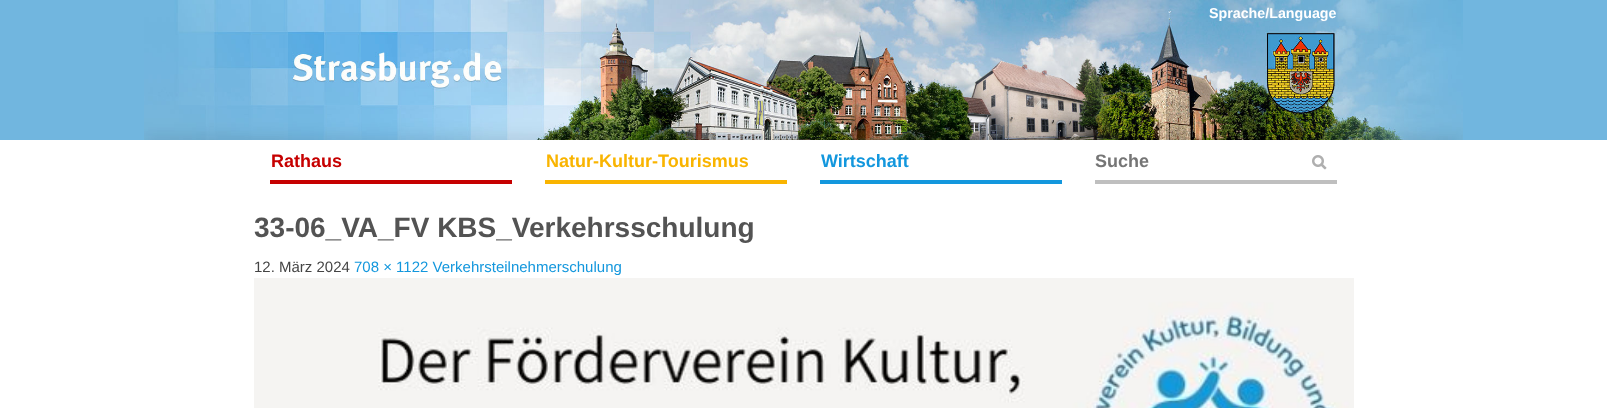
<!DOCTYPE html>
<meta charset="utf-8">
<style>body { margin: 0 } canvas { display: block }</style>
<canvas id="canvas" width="1607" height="408"></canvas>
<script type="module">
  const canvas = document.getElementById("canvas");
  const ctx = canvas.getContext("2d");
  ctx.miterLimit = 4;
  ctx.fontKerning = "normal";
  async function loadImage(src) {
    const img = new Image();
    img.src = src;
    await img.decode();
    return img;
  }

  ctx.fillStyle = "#ffffff";
  ctx.fillRect(0, 0, 1607, 408);
  ctx.fillStyle = "#71b6df";
  ctx.fillRect(0, 0, 1607, 140);
  ctx.drawImage(await loadImage("img1.png"), 144, 0, 1319, 140);
  ctx.font = "bold 14.25px Liberation Sans";
  ctx.fillStyle = "#ffffff";
  ctx.fillText("Sprache/Language", 1209, 18);
  ctx.font = "bold 18px Liberation Sans";
  ctx.fillStyle = "#c60000";
  ctx.fillText("Rathaus", 271, 167);
  ctx.fillStyle = "#f9b400";
  ctx.fillText("Natur-Kultur-Tourismus", 546, 167);
  ctx.fillStyle = "#1397dd";
  ctx.fillText("Wirtschaft", 821, 167);
  ctx.fillStyle = "#757575";
  ctx.fillText("Suche", 1095, 167);
  ctx.drawImage(await loadImage("img2.png"), 1312, 155, 15, 15);
  ctx.fillStyle = "#c60000";
  ctx.fillRect(270, 180, 242, 4);
  ctx.fillStyle = "#f9b400";
  ctx.fillRect(545, 180, 242, 4);
  ctx.fillStyle = "#1397dd";
  ctx.fillRect(820, 180, 242, 4);
  ctx.fillStyle = "#bfbfbf";
  ctx.fillRect(1095, 180, 242, 4);
  ctx.font = "bold 28px Liberation Sans";
  ctx.fillStyle = "#535353";
  ctx.fillText("33-06_VA_FV KBS_Verkehrsschulung", 254, 237);
  ctx.font = "15px Liberation Sans";
  ctx.fillStyle = "#444444";
  ctx.fillText("12. März 2024", 254, 272);
  ctx.fillStyle = "#1397dd";
  ctx.fillText("708 × 1122 Verkehrsteilnehmerschulung", 354, 272);
  ctx.drawImage(await loadImage("img3.png"), 254, 278, 1100, 130);
</script>
